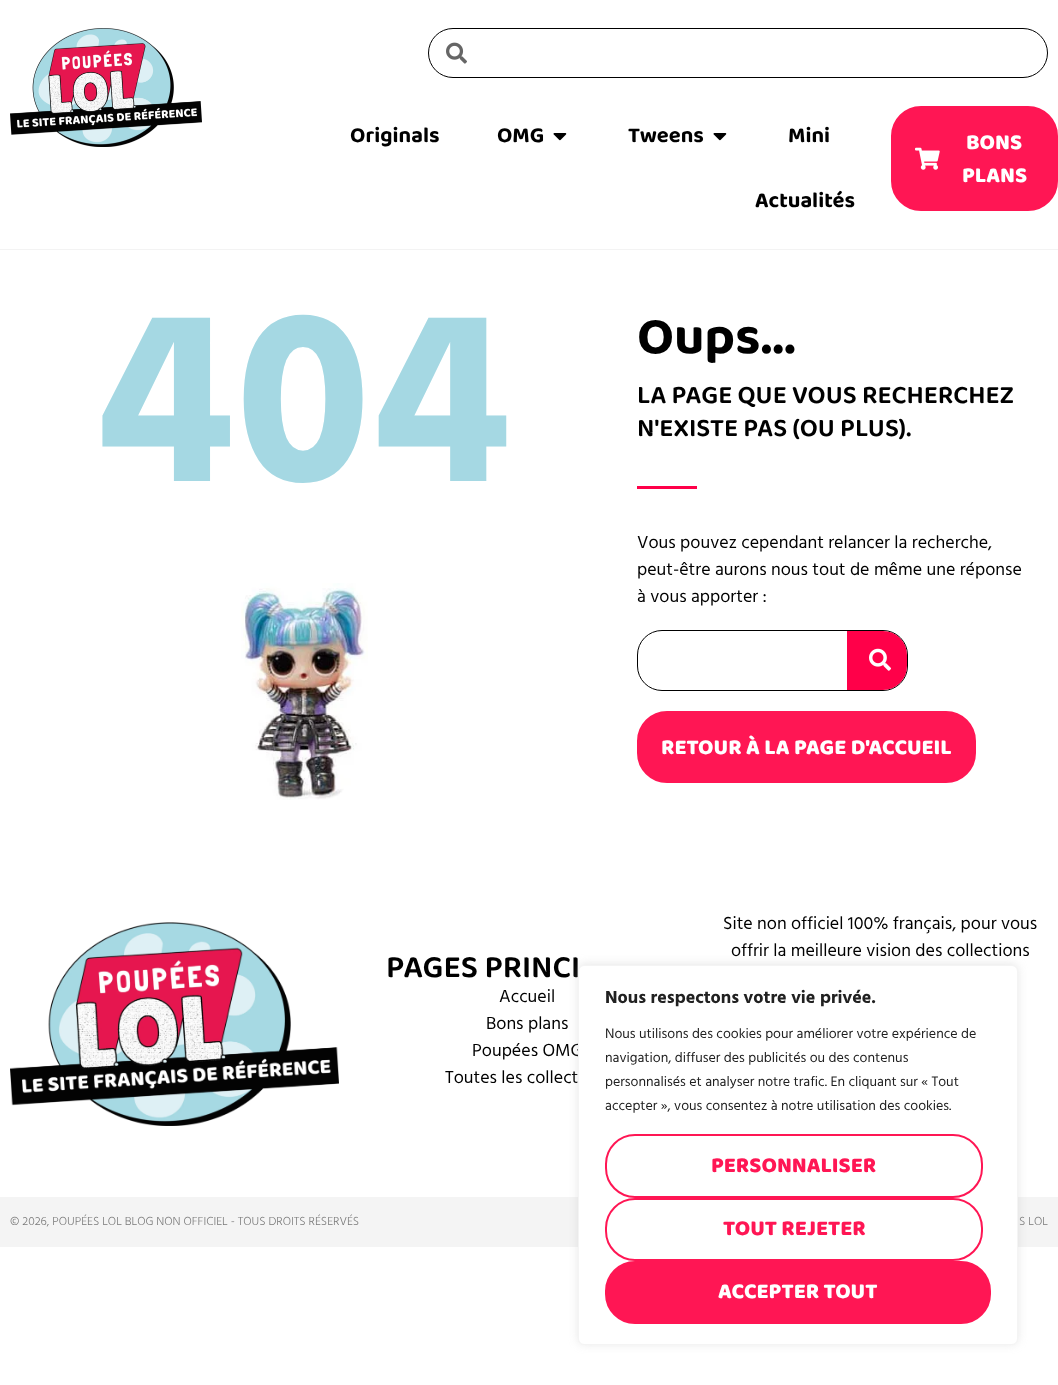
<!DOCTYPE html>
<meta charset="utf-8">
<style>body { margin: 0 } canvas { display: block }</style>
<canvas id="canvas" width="1058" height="1385"></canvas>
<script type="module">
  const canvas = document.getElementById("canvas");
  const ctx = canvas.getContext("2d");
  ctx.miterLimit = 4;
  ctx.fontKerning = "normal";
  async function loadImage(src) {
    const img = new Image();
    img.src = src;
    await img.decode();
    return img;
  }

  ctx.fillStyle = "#ffffff";
  ctx.fillRect(0, 0, 1058, 1385);
  ctx.fillStyle = "#f3f3f3";
  ctx.fillRect(0, 249, 1058, 1);
  ctx.drawImage(await loadImage("img1.png"), 10, 28, 192, 119);
  ctx.beginPath();
  ctx.roundRect(428.5, 28.5, 619, 49, 24.5);
  ctx.strokeStyle = "#000000";
  ctx.stroke();
  ctx.drawImage(await loadImage("img2.png"), 446, 42, 21, 22);
  ctx.font = "bold 22px 'Baloo 2'";
  ctx.fillStyle = "#000000";
  ctx.fillText("Originals", 350, 142);
  ctx.fillText("OMG", 497, 142);
  ctx.drawImage(await loadImage("img3.png"), 553, 133, 14, 8);
  ctx.fillText("Tweens", 628, 142);
  ctx.drawImage(await loadImage("img3.png"), 713, 133, 14, 8);
  ctx.fillText("Mini", 788, 142);
  ctx.fillText("Actualités", 755, 207);
  ctx.fillStyle = "#ff1654";
  ctx.beginPath();
  ctx.roundRect(892, 107, 165, 103, 29);
  ctx.fill();
  ctx.strokeStyle = "#ff1654";
  ctx.lineWidth = 2;
  ctx.stroke();
  ctx.drawImage(await loadImage("img4.png"), 915, 147, 25, 23);
  ctx.font = "800 22px 'Baloo Thambi 2'";
  ctx.fillStyle = "#ffffff";
  ctx.fillText("BONS", 966, 149);
  ctx.fillText("PLANS", 962, 182);
  ctx.font = "bold 249px Hind Madurai";
  ctx.fillStyle = "#a5d8e3";
  ctx.fillText("404", 95, 481);
  ctx.drawImage(await loadImage("img5.png"), 241, 583, 127, 217);
  ctx.font = "bold 53px 'Baloo Thambi 2'";
  ctx.fillStyle = "#000000";
  ctx.fillText("Oups...", 637, 353);
  ctx.font = "600 26px 'Baloo Thambi 2'";
  ctx.fillText("LA PAGE QUE VOUS RECHERCHEZ", 637, 403);
  ctx.fillText("N'EXISTE PAS (OU PLUS).", 637, 436);
  ctx.fillStyle = "#ff0049";
  ctx.fillRect(637, 486, 60, 3);
  ctx.font = "18px Hind Madurai";
  ctx.fillStyle = "#000000";
  ctx.fillText("Vous pouvez cependant relancer la recherche,", 637, 548);
  ctx.fillText("peut-être aurons nous tout de même une réponse", 637, 575);
  ctx.fillText("à vous apporter :", 637, 602);
  ctx.beginPath();
  ctx.roundRect(637.5, 630.5, 270, 60, 24.5);
  ctx.strokeStyle = "#000000";
  ctx.lineWidth = 1;
  ctx.stroke();
  ctx.fillStyle = "#ff0049";
  ctx.beginPath();
  ctx.roundRect(847, 631, 60, 59, [0, 24, 24, 0]);
  ctx.fill();
  ctx.drawImage(await loadImage("img6.png"), 869, 648, 22, 23);
  ctx.fillStyle = "#ff1654";
  ctx.beginPath();
  ctx.roundRect(638, 712, 337, 70, 29);
  ctx.fill();
  ctx.strokeStyle = "#ff1654";
  ctx.lineWidth = 2;
  ctx.stroke();
  ctx.font = "800 22px 'Baloo Thambi 2'";
  ctx.fillStyle = "#ffffff";
  ctx.fillText("RETOUR À LA PAGE D'ACCUEIL", 661, 754);
  ctx.drawImage(await loadImage("img7.png"), 10, 922, 329, 204);
  ctx.font = "600 32px 'Baloo Thambi 2'";
  ctx.fillStyle = "#000000";
  ctx.fillText("PAGES PRINCI", 386, 977);
  ctx.font = "18px Hind Madurai";
  ctx.fillText("Accueil", 499, 1002);
  ctx.fillText("Bons plans", 486, 1029);
  ctx.fillText("Poupées OMG", 472, 1056);
  ctx.fillText("Toutes les collect", 445, 1083);
  ctx.fillText("Site non officiel 100% français, pour vous", 723, 929);
  ctx.fillText("offrir la meilleure vision des collections", 731, 956);
  ctx.fillStyle = "#f4f4f4";
  ctx.fillRect(0, 1197, 1058, 50);
  ctx.font = "300 12px Hind Madurai";
  ctx.fillStyle = "#7a7a7a";
  ctx.fillText("© 2026, POUPÉES LOL BLOG NON OFFICIEL - TOUS DROITS RÉSERVÉS", 10, 1225);
  ctx.fillText("S LOL", 1019, 1225);
  ctx.fillStyle = "rgba(172, 171, 171, 0.3)";
  ctx.filter = "blur(5px)";
  ctx.beginPath();
  ctx.roundRect(578, 964, 440, 380, 6);
  ctx.fill();
  ctx.filter = "none";
  ctx.fillStyle = "#ffffff";
  ctx.beginPath();
  ctx.roundRect(578.5, 965.5, 439, 379, 5.5);
  ctx.fill();
  ctx.strokeStyle = "#f4f4f4";
  ctx.lineWidth = 1;
  ctx.stroke();
  ctx.font = "bold 18px Hind Madurai";
  ctx.fillStyle = "#212121";
  ctx.fillText("Nous respectons votre vie privée.", 605, 1003);
  ctx.font = "14px Hind Madurai";
  ctx.fillText("Nous utilisons des cookies pour améliorer votre expérience de", 605, 1038);
  ctx.fillText("navigation, diffuser des publicités ou des contenus", 605, 1062);
  ctx.fillText("personnalisés et analyser notre trafic. En cliquant sur « Tout", 605, 1086);
  ctx.fillText("accepter », vous consentez à notre utilisation des cookies.", 605, 1110);
  ctx.beginPath();
  ctx.roundRect(606, 1135, 376, 62, 29);
  ctx.strokeStyle = "#ff1654";
  ctx.lineWidth = 2;
  ctx.stroke();
  ctx.font = "800 22px 'Baloo Thambi 2'";
  ctx.fillStyle = "#ff1654";
  ctx.fillText("PERSONNALISER", 711, 1172);
  ctx.beginPath();
  ctx.roundRect(606, 1199, 376, 61, 29);
  ctx.stroke();
  ctx.fillText("TOUT REJETER", 723, 1235);
  ctx.beginPath();
  ctx.roundRect(606, 1262, 384, 61, 29);
  ctx.fill();
  ctx.stroke();
  ctx.fillStyle = "#ffffff";
  ctx.fillText("ACCEPTER TOUT", 718, 1298);
</script>
